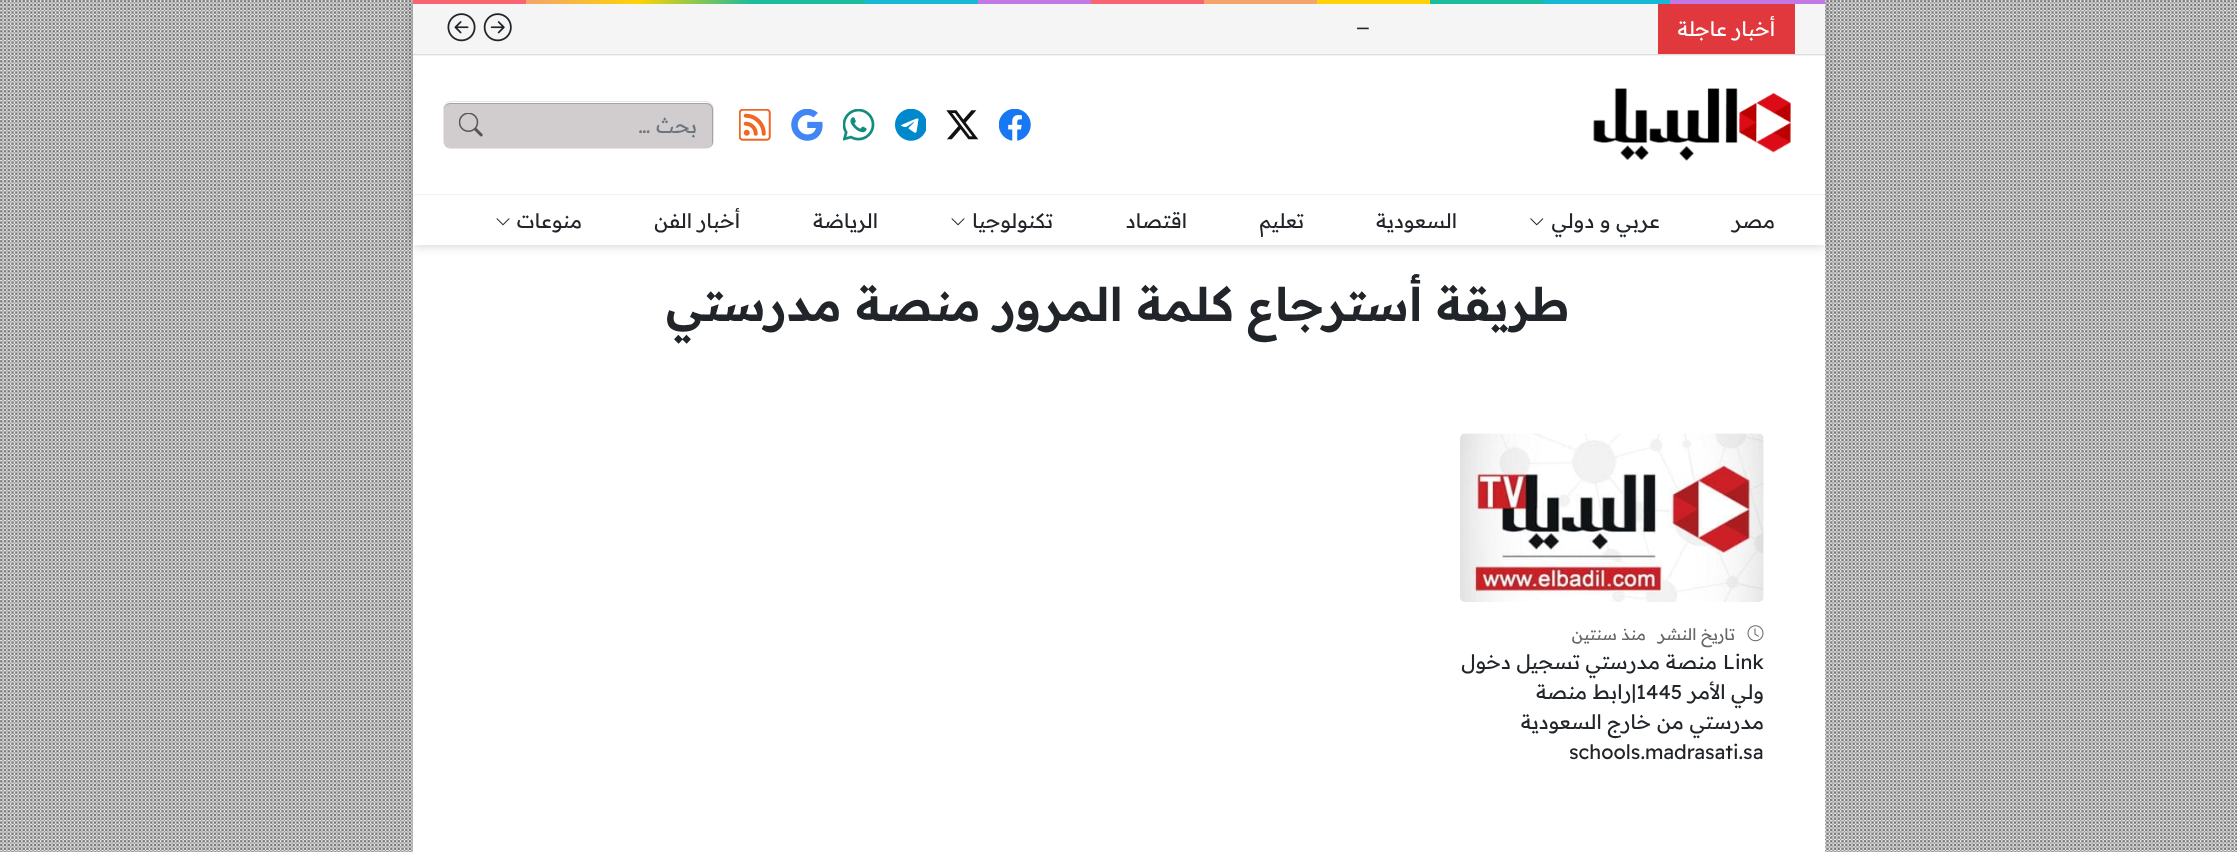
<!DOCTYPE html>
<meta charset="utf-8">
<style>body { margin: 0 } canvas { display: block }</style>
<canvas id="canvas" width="2237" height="852"></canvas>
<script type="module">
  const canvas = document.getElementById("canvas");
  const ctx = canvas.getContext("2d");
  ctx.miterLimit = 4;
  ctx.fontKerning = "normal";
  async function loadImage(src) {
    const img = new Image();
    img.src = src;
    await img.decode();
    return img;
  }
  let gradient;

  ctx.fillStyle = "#f5f5f5";
  ctx.fillRect(0, 0, 2237, 852);
  ctx.drawImage(await loadImage("img1.png"), 0, 0, 2237, 852);
  ctx.fillStyle = "#ffffff";
  ctx.fillRect(413, 245, 1412, 607);
  ctx.fillStyle = "rgba(0, 0, 0, 0.2)";
  ctx.filter = "blur(6px)";
  ctx.beginPath();
  ctx.rect(413, 0, 1412, 245);
  ctx.fill();
  ctx.filter = "none";
  gradient = ctx.createLinearGradient(413, 1.9, 1825, 1.9);
  gradient.addColorStop(0, "#f76570");
  gradient.addColorStop(0.08, "#f76570");
  gradient.addColorStop(0.08, "#f3a46b");
  gradient.addColorStop(0.16, "#ffd205");
  gradient.addColorStop(0.24, "#1bbc9b");
  gradient.addColorStop(0.32, "#1bbc9b");
  gradient.addColorStop(0.32, "#14b9d5");
  gradient.addColorStop(0.4, "#14b9d5");
  gradient.addColorStop(0.4, "#c377e4");
  gradient.addColorStop(0.48, "#c377e4");
  gradient.addColorStop(0.48, "#f76570");
  gradient.addColorStop(0.56, "#f76570");
  gradient.addColorStop(0.56, "#f3a46b");
  gradient.addColorStop(0.64, "#f3a46b");
  gradient.addColorStop(0.64, "#ffd205");
  gradient.addColorStop(0.72, "#ffd205");
  gradient.addColorStop(0.72, "#1bbc9b");
  gradient.addColorStop(0.8, "#1bbc9b");
  gradient.addColorStop(0.8, "#14b9d5");
  gradient.addColorStop(0.89, "#14b9d5");
  gradient.addColorStop(0.89, "#c377e4");
  gradient.addColorStop(1, "#c377e4");
  ctx.fillStyle = gradient;
  ctx.fillRect(413, 0, 1412, 4);
  ctx.fillStyle = "#f5f5f5";
  ctx.fillRect(413, 4, 1412, 50);
  ctx.fillStyle = "#dddddd";
  ctx.fillRect(413, 54, 1412, 1);
  ctx.fillStyle = "#e0383d";
  ctx.fillRect(1658, 4, 137, 50);
  ctx.direction = "rtl";
  ctx.font = "20px Readex Pro";
  ctx.fillStyle = "#ffffff";
  ctx.fillText("أخبار عاجلة", 1775, 36);
  ctx.direction = "ltr";
  ctx.fillStyle = "#212529";
  ctx.fillText("_", 1356, 26);
  ctx.drawImage(await loadImage("img2.png"), 483, 13, 29, 29);
  ctx.drawImage(await loadImage("img3.png"), 447, 13, 29, 29);
  ctx.fillStyle = "#ffffff";
  ctx.fillRect(413, 56, 1412, 138);
  ctx.fillStyle = "#f2f2f2";
  ctx.fillRect(413, 55, 1412, 1);
  ctx.drawImage(await loadImage("img4.png"), 1593, 88, 198, 73);
  ctx.drawImage(await loadImage("img5.png"), 999, 109, 32, 32);
  ctx.drawImage(await loadImage("img6.png"), 946, 110, 33, 30);
  ctx.drawImage(await loadImage("img7.png"), 895, 109, 31, 32);
  ctx.drawImage(await loadImage("img8.png"), 843, 109, 32, 32);
  ctx.drawImage(await loadImage("img9.png"), 791, 109, 32, 32);
  ctx.drawImage(await loadImage("img10.png"), 739, 109, 32, 32);
  ctx.fillStyle = "#d1ccce";
  ctx.beginPath();
  ctx.roundRect(444, 103, 269, 45, 6);
  ctx.fill();
  ctx.drawImage(await loadImage("img11.png"), 459, 113, 24, 24);
  ctx.fillStyle = "rgba(0, 0, 0, 0.2)";
  ctx.beginPath();
  ctx.moveTo(450, 104);
  ctx.lineTo(706, 104);
  ctx.bezierCurveTo(710, 104, 712, 107, 712, 110);
  ctx.lineTo(712, 142);
  ctx.bezierCurveTo(712, 144, 712, 145, 711, 147);
  ctx.bezierCurveTo(712, 146, 713, 144, 713, 142);
  ctx.lineTo(713, 109);
  ctx.bezierCurveTo(713, 106, 710, 103, 707, 103);
  ctx.lineTo(450, 103);
  ctx.bezierCurveTo(447, 103, 444, 106, 444, 109);
  ctx.lineTo(444, 110);
  ctx.bezierCurveTo(444, 107, 447, 104, 450, 104);
  ctx.closePath();
  ctx.fill();
  ctx.beginPath();
  ctx.roundRect(443.5, 101.5, 270, 47, 7.5);
  ctx.strokeStyle = "rgba(0, 0, 0, 0.1)";
  ctx.stroke();
  ctx.direction = "rtl";
  ctx.fillStyle = "#6c757d";
  ctx.fillText("بحث …", 697, 133);
  ctx.fillStyle = "#ffffff";
  ctx.fillRect(413, 195, 1412, 50);
  ctx.fillStyle = "#f2f2f2";
  ctx.fillRect(413, 194, 1412, 1);
  ctx.fillStyle = "#212529";
  ctx.fillText("مصر", 1775, 228);
  ctx.fillText("عربي و دولي", 1660, 228);
  ctx.drawImage(await loadImage("img12.png"), 1530, 218, 14, 8);
  ctx.fillText("السعودية", 1457, 228);
  ctx.fillText("تعليم", 1304, 228);
  ctx.fillText("اقتصاد", 1187, 228);
  ctx.fillText("تكنولوجيا", 1053, 228);
  ctx.drawImage(await loadImage("img13.png"), 951, 218, 14, 8);
  ctx.fillText("الرياضة", 878, 228);
  ctx.fillText("أخبار الفن", 740, 228);
  ctx.fillText("منوعات", 582, 228);
  ctx.drawImage(await loadImage("img13.png"), 496, 218, 14, 8);
  ctx.font = "600 46.4px Readex Pro";
  ctx.fillText("طريقة أسترجاع كلمة المرور منصة مدرستي", 1570, 321);
  ctx.drawImage(await loadImage("img14.png"), 1460, 433, 304, 169);
  ctx.drawImage(await loadImage("img15.png"), 1747, 625, 17, 17);
  ctx.font = "16px Readex Pro";
  ctx.fillStyle = "#646669";
  ctx.fillText("تاريخ النشر", 1735, 640);
  ctx.fillText("منذ سنتين", 1646, 640);
  ctx.direction = "ltr";
  ctx.font = "20px Readex Pro";
  ctx.fillStyle = "#212529";
  ctx.fillText("Link", 1723, 669);
  ctx.direction = "rtl";
  ctx.fillText("منصة مدرستي تسجيل دخول", 1717, 669);
  ctx.fillText("ولي الأمر", 1764, 699);
  ctx.direction = "ltr";
  ctx.fillText("1445", 1636, 699);
  ctx.direction = "rtl";
  ctx.fillText("|رابط منصة", 1636, 699);
  ctx.fillText("مدرستي من خارج السعودية", 1764, 729);
  ctx.direction = "ltr";
  ctx.fillText("schools.madrasati.sa", 1569, 759);
</script>
